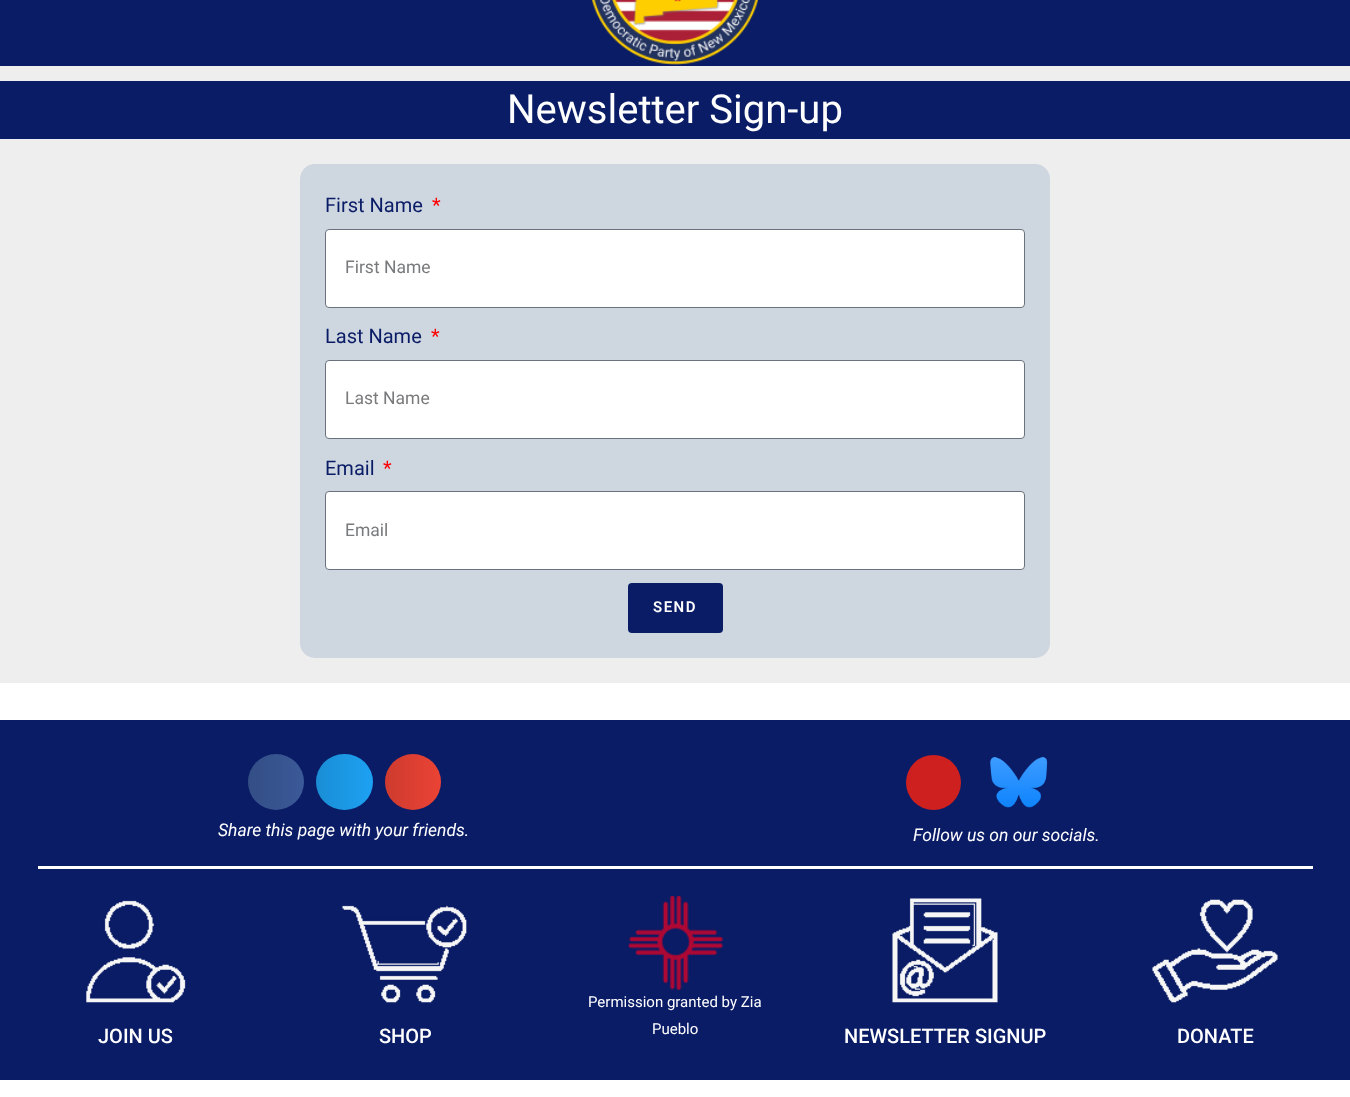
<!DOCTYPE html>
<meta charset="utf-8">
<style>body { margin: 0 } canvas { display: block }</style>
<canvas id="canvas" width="1350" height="1097"></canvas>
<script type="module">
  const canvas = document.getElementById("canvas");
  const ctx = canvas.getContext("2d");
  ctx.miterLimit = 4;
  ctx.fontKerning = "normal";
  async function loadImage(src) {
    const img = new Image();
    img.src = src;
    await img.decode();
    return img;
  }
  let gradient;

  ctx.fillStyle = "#eeeeee";
  ctx.fillRect(0, 0, 1350, 1097);
  ctx.fillStyle = "#0a1c66";
  ctx.fillRect(0, 0, 1350, 66);
  ctx.drawImage(await loadImage("img1.png"), 592, 0, 166, 65);
  ctx.fillRect(0, 81, 1350, 58);
  ctx.font = "40px Roboto";
  ctx.fillStyle = "#ffffff";
  ctx.fillText("Newsletter Sign-up", 507, 123);
  ctx.fillStyle = "#ced6e0";
  ctx.beginPath();
  ctx.roundRect(300, 164, 750, 494, 15);
  ctx.fill();
  ctx.font = "20px Roboto";
  ctx.fillStyle = "#0a1c66";
  ctx.fillText("First Name", 325, 212);
  ctx.fillStyle = "#ff0000";
  ctx.fillText("*", 432, 212);
  ctx.fillStyle = "#ffffff";
  ctx.beginPath();
  ctx.roundRect(325.5, 229.5, 699, 78, 3.5);
  ctx.fill();
  ctx.strokeStyle = "#69727d";
  ctx.stroke();
  ctx.font = "17.5px Roboto";
  ctx.fillStyle = "#797a7c";
  ctx.fillText("First Name", 345, 273);
  ctx.font = "20px Roboto";
  ctx.fillStyle = "#0a1c66";
  ctx.fillText("Last Name", 325, 343);
  ctx.fillStyle = "#ff0000";
  ctx.fillText("*", 431, 343);
  ctx.fillStyle = "#ffffff";
  ctx.beginPath();
  ctx.roundRect(325.5, 360.5, 699, 78, 3.5);
  ctx.fill();
  ctx.stroke();
  ctx.font = "17.5px Roboto";
  ctx.fillStyle = "#797a7c";
  ctx.fillText("Last Name", 345, 404);
  ctx.font = "20px Roboto";
  ctx.fillStyle = "#0a1c66";
  ctx.fillText("Email", 325, 475);
  ctx.fillStyle = "#ff0000";
  ctx.fillText("*", 383, 475);
  ctx.fillStyle = "#ffffff";
  ctx.beginPath();
  ctx.roundRect(325.5, 491.5, 699, 78, 3.5);
  ctx.fill();
  ctx.stroke();
  ctx.font = "17.5px Roboto";
  ctx.fillStyle = "#797a7c";
  ctx.fillText("Email", 345, 536);
  ctx.fillStyle = "#0a1c66";
  ctx.beginPath();
  ctx.roundRect(628, 583, 95, 50, 4);
  ctx.fill();
  ctx.letterSpacing = "1.5px";
  ctx.font = "600 15px Roboto";
  ctx.fillStyle = "#ffffff";
  ctx.fillText("SEND", 653, 612);
  ctx.fillRect(0, 683, 1350, 414);
  ctx.fillStyle = "#0a1c66";
  ctx.fillRect(0, 720, 1350, 360);
  ctx.fillStyle = "#3b5998";
  ctx.beginPath();
  ctx.arc(276, 782, 28, 0, Math.PI * 2);
  ctx.fill();
  gradient = ctx.createLinearGradient(248, 782, 304, 782);
  gradient.addColorStop(0, "rgba(0, 0, 0, 0.12)");
  gradient.addColorStop(1, "rgba(0, 0, 0, 0)");
  ctx.fillStyle = gradient;
  ctx.beginPath();
  ctx.arc(276, 782, 28, 0, Math.PI * 2);
  ctx.fill();
  ctx.fillStyle = "#1da1f2";
  ctx.beginPath();
  ctx.roundRect(316, 754, 57, 56, 28);
  ctx.fill();
  gradient = ctx.createLinearGradient(316, 782, 373, 782);
  gradient.addColorStop(0, "rgba(0, 0, 0, 0.12)");
  gradient.addColorStop(1, "rgba(0, 0, 0, 0)");
  ctx.fillStyle = gradient;
  ctx.beginPath();
  ctx.roundRect(316, 754, 57, 56, 28);
  ctx.fill();
  ctx.fillStyle = "#ea4335";
  ctx.beginPath();
  ctx.arc(413, 782, 28, 0, Math.PI * 2);
  ctx.fill();
  gradient = ctx.createLinearGradient(385, 782, 441, 782);
  gradient.addColorStop(0, "rgba(0, 0, 0, 0.12)");
  gradient.addColorStop(1, "rgba(0, 0, 0, 0)");
  ctx.fillStyle = gradient;
  ctx.beginPath();
  ctx.arc(413, 782, 28, 0, Math.PI * 2);
  ctx.fill();
  ctx.letterSpacing = "0px";
  ctx.font = "italic 17.5px Roboto";
  ctx.fillStyle = "#ffffff";
  ctx.fillText("Share this page with your friends.", 218, 836);
  ctx.fillStyle = "#cd201f";
  ctx.beginPath();
  ctx.arc(933.5, 782.5, 27.5, 0, Math.PI * 2);
  ctx.fill();
  ctx.drawImage(await loadImage("img2.png"), 990, 757, 58, 51);
  ctx.fillStyle = "#ffffff";
  ctx.fillText("Follow us on our socials.", 913, 841);
  ctx.fillRect(38, 866, 1275, 3);
  ctx.drawImage(await loadImage("img3.png"), 86, 900, 100, 103);
  ctx.font = "500 20px Roboto";
  ctx.fillText("JOIN US", 98, 1043);
  ctx.drawImage(await loadImage("img4.png"), 342, 905, 125, 98);
  ctx.fillText("SHOP", 379, 1043);
  ctx.drawImage(await loadImage("img5.png"), 628, 896, 95, 94);
  ctx.font = "15px Roboto";
  ctx.fillText("Permission granted by Zia", 588, 1007);
  ctx.fillText("Pueblo", 652, 1034);
  ctx.drawImage(await loadImage("img6.png"), 892, 898, 106, 105);
  ctx.font = "500 20px Roboto";
  ctx.fillText("NEWSLETTER SIGNUP", 844, 1043);
  ctx.drawImage(await loadImage("img7.png"), 1152, 899, 126, 104);
  ctx.fillText("DONATE", 1177, 1043);
</script>
